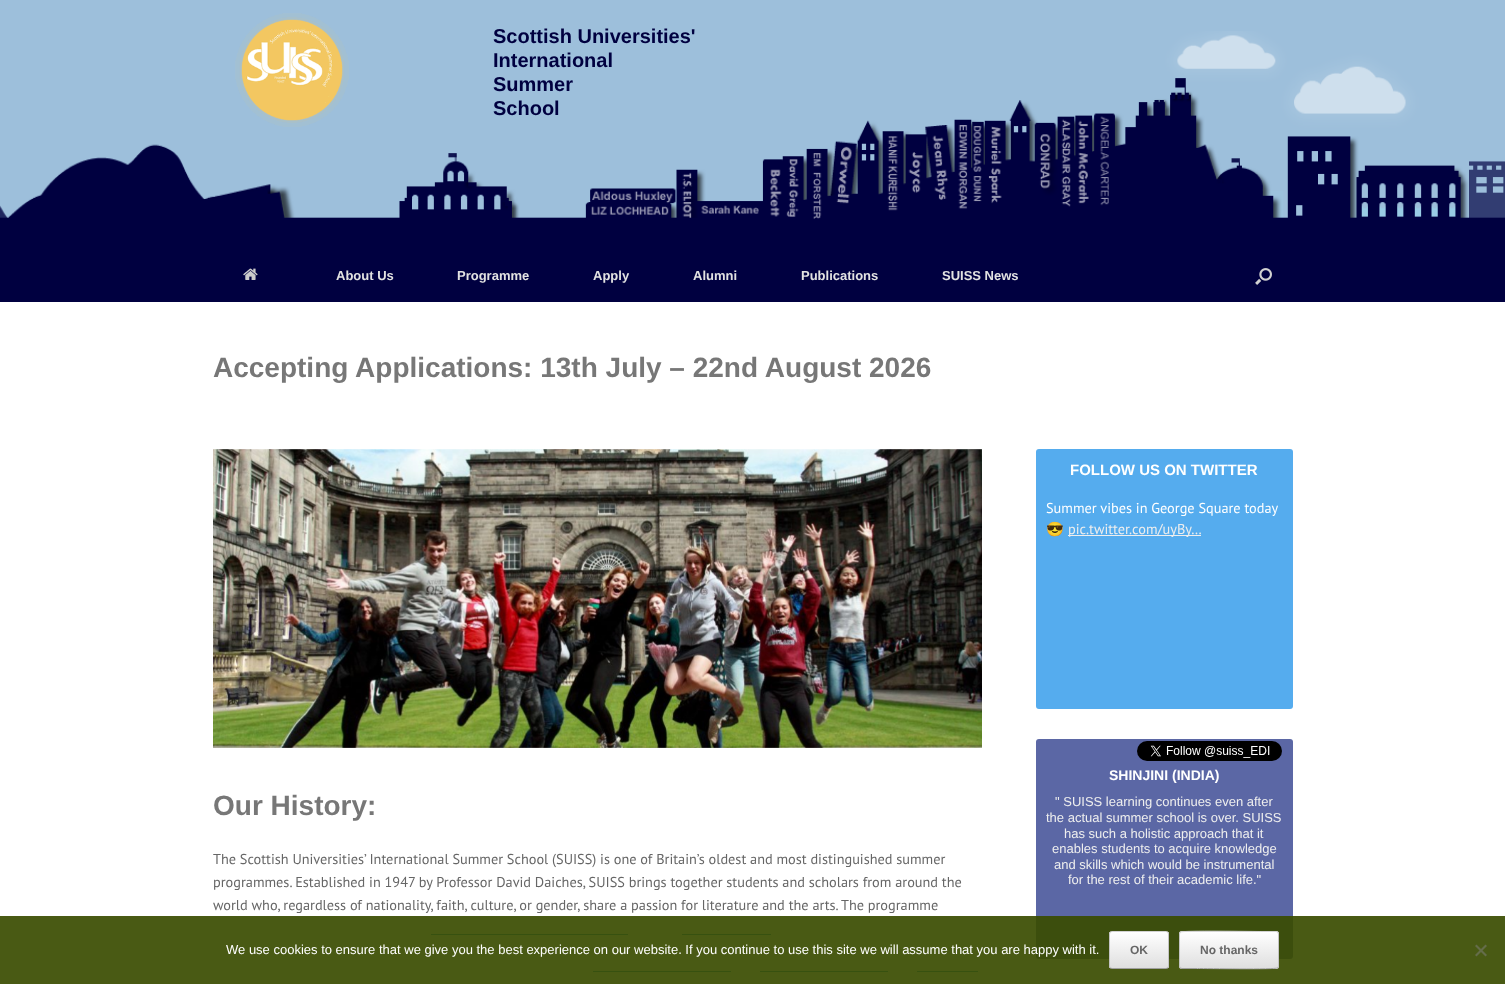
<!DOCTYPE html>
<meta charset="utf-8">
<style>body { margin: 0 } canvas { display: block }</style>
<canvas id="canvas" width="1505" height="984"></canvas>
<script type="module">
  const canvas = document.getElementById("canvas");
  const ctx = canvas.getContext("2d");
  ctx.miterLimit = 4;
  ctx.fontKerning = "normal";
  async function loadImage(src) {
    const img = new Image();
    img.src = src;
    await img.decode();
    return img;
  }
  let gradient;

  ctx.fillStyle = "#ffffff";
  ctx.fillRect(0, 0, 1505, 984);
  ctx.fillStyle = "#9dbfdb";
  ctx.fillRect(0, 0, 1505, 31);
  ctx.drawImage(await loadImage("img1.png"), 0, 31, 1505, 271);
  ctx.drawImage(await loadImage("img2.png"), 235, 13, 114, 114);
  ctx.font = "bold 20px Liberation Sans";
  ctx.fillStyle = "#000040";
  ctx.fillText("Scottish Universities'", 493, 43);
  ctx.fillText("International", 493, 67);
  ctx.fillText("Summer", 493, 91);
  ctx.fillText("School", 493, 115);
  ctx.drawImage(await loadImage("img3.png"), 243, 268, 15, 12);
  ctx.font = "bold 13px Liberation Sans";
  ctx.fillStyle = "#e2e2e2";
  ctx.fillText("About Us", 336, 280);
  ctx.fillText("Programme", 457, 280);
  ctx.fillText("Apply", 593, 280);
  ctx.fillText("Alumni", 693, 280);
  ctx.fillText("Publications", 801, 280);
  ctx.fillText("SUISS News", 942, 280);
  ctx.drawImage(await loadImage("img4.png"), 1255, 268, 17, 17);
  ctx.font = "bold 28px Liberation Sans";
  ctx.fillStyle = "#777777";
  ctx.fillText("Accepting Applications: 13th July – 22nd August 2026", 213, 377);
  ctx.drawImage(await loadImage("img5.png"), 213, 449, 769, 299);
  ctx.fillText("Our History:", 213, 815);
  ctx.font = "14.3px PT Sans";
  ctx.fillStyle = "#666666";
  ctx.fillText("The Scottish Universities’ International Summer School (SUISS) is one of Britain’s oldest and most distinguished summer", 213, 864);
  ctx.fillText("programmes. Established in 1947 by Professor David Daiches, SUISS brings together students and scholars from around the", 213, 887);
  ctx.fillText("world who, regardless of nationality, faith, culture, or gender, share a passion for literature and the arts. The programme", 213, 910);
  ctx.fillStyle = "#248cc8";
  ctx.fillRect(431, 934, 197, 1);
  ctx.fillRect(682, 934, 89, 1);
  ctx.fillRect(593, 971, 138, 1);
  ctx.fillRect(760, 971, 128, 1);
  ctx.fillRect(917, 971, 61, 1);
  ctx.fillStyle = "#55acee";
  ctx.beginPath();
  ctx.roundRect(1036, 449, 257, 260, 3);
  ctx.fill();
  ctx.font = "bold 15px Liberation Sans";
  ctx.fillStyle = "#ffffff";
  ctx.fillText("FOLLOW US ON TWITTER", 1070, 475);
  ctx.font = "14.3px PT Sans";
  ctx.fillText("Summer vibes in George Square today", 1046, 513);
  ctx.save();
  ctx.beginPath();
  ctx.rect(1046, 497, 237, 244);
  ctx.clip();
  ctx.font = "14.3px Noto Color Emoji";
  ctx.fillText("😎", 1046, 534);
  ctx.restore();
  ctx.fillStyle = "#eeeeee";
  ctx.fillRect(1068, 535, 133, 1);
  ctx.fillText("pic.twitter.com/uyBy…", 1068, 534);
  ctx.fillStyle = "#5b67a5";
  ctx.beginPath();
  ctx.roundRect(1036, 739, 257, 220, 3);
  ctx.fill();
  ctx.drawImage(await loadImage("img6.png"), 1137, 741, 145, 20);
  ctx.font = "bold 14px Liberation Sans";
  ctx.fillStyle = "#ffffff";
  ctx.fillText("SHINJINI (INDIA)", 1109, 780);
  ctx.font = "13px Liberation Sans";
  ctx.fillStyle = "#eeeeee";
  ctx.fillText("\" SUISS learning continues even after", 1055, 806);
  ctx.fillText("the actual summer school is over. SUISS", 1046, 822);
  ctx.fillText("has such a holistic approach that it", 1064, 838);
  ctx.fillText("enables students to acquire knowledge", 1052, 853);
  ctx.fillText("and skills which would be instrumental", 1054, 869);
  ctx.fillText("for the rest of their academic life.\"", 1068, 884);
  ctx.fillStyle = "rgba(58, 76, 0, 0.92)";
  ctx.fillRect(0, 916, 1505, 68);
  ctx.fillStyle = "#ffffff";
  ctx.fillText("We use cookies to ensure that we give you the best experience on our website. If you continue to use this site we will assume that you are happy with it.", 226, 954);
  ctx.save();
  ctx.beginPath();
  ctx.roundRect(1109, 931, 60, 38, 3);
  ctx.clip();
  gradient = ctx.createLinearGradient(1110, 968, 1110, 932);
  gradient.addColorStop(0, "#dfdfdf");
  gradient.addColorStop(1, "#ffffff");
  ctx.fillStyle = gradient;
  ctx.fillRect(1109, 932, 60, 36);
  ctx.restore();
  ctx.beginPath();
  ctx.moveTo(1110, 932);
  ctx.lineTo(1112, 931.5);
  ctx.lineTo(1166, 931.5);
  ctx.lineTo(1168, 932);
  ctx.strokeStyle = "#d2d2d2";
  ctx.stroke();
  ctx.beginPath();
  ctx.moveTo(1168, 932);
  ctx.bezierCurveTo(1168, 932.5, 1168.5, 933.5, 1168.5, 934);
  ctx.lineTo(1168.5, 966);
  ctx.bezierCurveTo(1168.5, 966.5, 1168, 967.5, 1168, 968);
  ctx.strokeStyle = "#c3c3c3";
  ctx.stroke();
  ctx.beginPath();
  ctx.moveTo(1168, 968);
  ctx.lineTo(1166, 968.5);
  ctx.lineTo(1112, 968.5);
  ctx.lineTo(1110, 968);
  ctx.strokeStyle = "#9f9f9f";
  ctx.stroke();
  ctx.beginPath();
  ctx.moveTo(1110, 968);
  ctx.bezierCurveTo(1110, 967.5, 1109.5, 966.5, 1109.5, 966);
  ctx.lineTo(1109.5, 934);
  ctx.bezierCurveTo(1109.5, 933.5, 1110, 932.5, 1110, 932);
  ctx.strokeStyle = "#c3c3c3";
  ctx.stroke();
  ctx.font = "bold 12px Liberation Sans";
  ctx.fillStyle = "#666666";
  ctx.fillText("OK", 1130, 954);
  ctx.save();
  ctx.beginPath();
  ctx.roundRect(1179, 931, 100, 38, 3);
  ctx.clip();
  gradient = ctx.createLinearGradient(1180, 932, 1180, 896);
  gradient.addColorStop(0, "#dfdfdf");
  gradient.addColorStop(1, "#ffffff");
  ctx.fillStyle = gradient;
  ctx.fillRect(1179, 931, 100, 1);
  gradient = ctx.createLinearGradient(1180, 968, 1180, 932);
  gradient.addColorStop(0, "#dfdfdf");
  gradient.addColorStop(1, "#ffffff");
  ctx.fillStyle = gradient;
  ctx.fillRect(1179, 932, 100, 36);
  gradient = ctx.createLinearGradient(1180, 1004, 1180, 968);
  gradient.addColorStop(0, "#dfdfdf");
  gradient.addColorStop(1, "#ffffff");
  ctx.fillStyle = gradient;
  ctx.fillRect(1179, 968, 100, 1);
  ctx.restore();
  ctx.beginPath();
  ctx.moveTo(1180, 932);
  ctx.lineTo(1180.5, 932);
  ctx.bezierCurveTo(1182.5, 930.5, 1252, 931.5, 1260.5, 931.5);
  ctx.lineTo(1276, 931.5);
  ctx.lineTo(1278, 932);
  ctx.strokeStyle = "#d2d2d2";
  ctx.stroke();
  ctx.beginPath();
  ctx.moveTo(1278, 932);
  ctx.bezierCurveTo(1278, 932.5, 1278.5, 933.5, 1278.5, 934);
  ctx.lineTo(1278.5, 966);
  ctx.bezierCurveTo(1278.5, 966.5, 1278, 967.5, 1278, 968);
  ctx.strokeStyle = "#c3c3c3";
  ctx.stroke();
  ctx.beginPath();
  ctx.moveTo(1278, 968);
  ctx.lineTo(1277.5, 968);
  ctx.bezierCurveTo(1275.5, 969.5, 1206, 968.5, 1197.5, 968.5);
  ctx.lineTo(1182, 968.5);
  ctx.lineTo(1180, 968);
  ctx.strokeStyle = "#9f9f9f";
  ctx.stroke();
  ctx.beginPath();
  ctx.moveTo(1180, 968);
  ctx.bezierCurveTo(1180, 967.5, 1179.5, 966.5, 1179.5, 966);
  ctx.lineTo(1179.5, 934);
  ctx.bezierCurveTo(1179.5, 933.5, 1180, 932.5, 1180, 932);
  ctx.strokeStyle = "#c3c3c3";
  ctx.stroke();
  ctx.fillText("No thanks", 1200, 954);
  ctx.fillStyle = "#656d4a";
  ctx.beginPath();
  ctx.moveTo(1485.5, 944.5);
  ctx.lineTo(1487, 946);
  ctx.lineTo(1476.5, 956.5);
  ctx.lineTo(1475, 955);
  ctx.closePath();
  ctx.fill();
  ctx.beginPath();
  ctx.moveTo(1475, 946);
  ctx.lineTo(1476.5, 944.5);
  ctx.lineTo(1487, 955);
  ctx.lineTo(1485.5, 956.5);
  ctx.closePath();
  ctx.fill();
</script>
